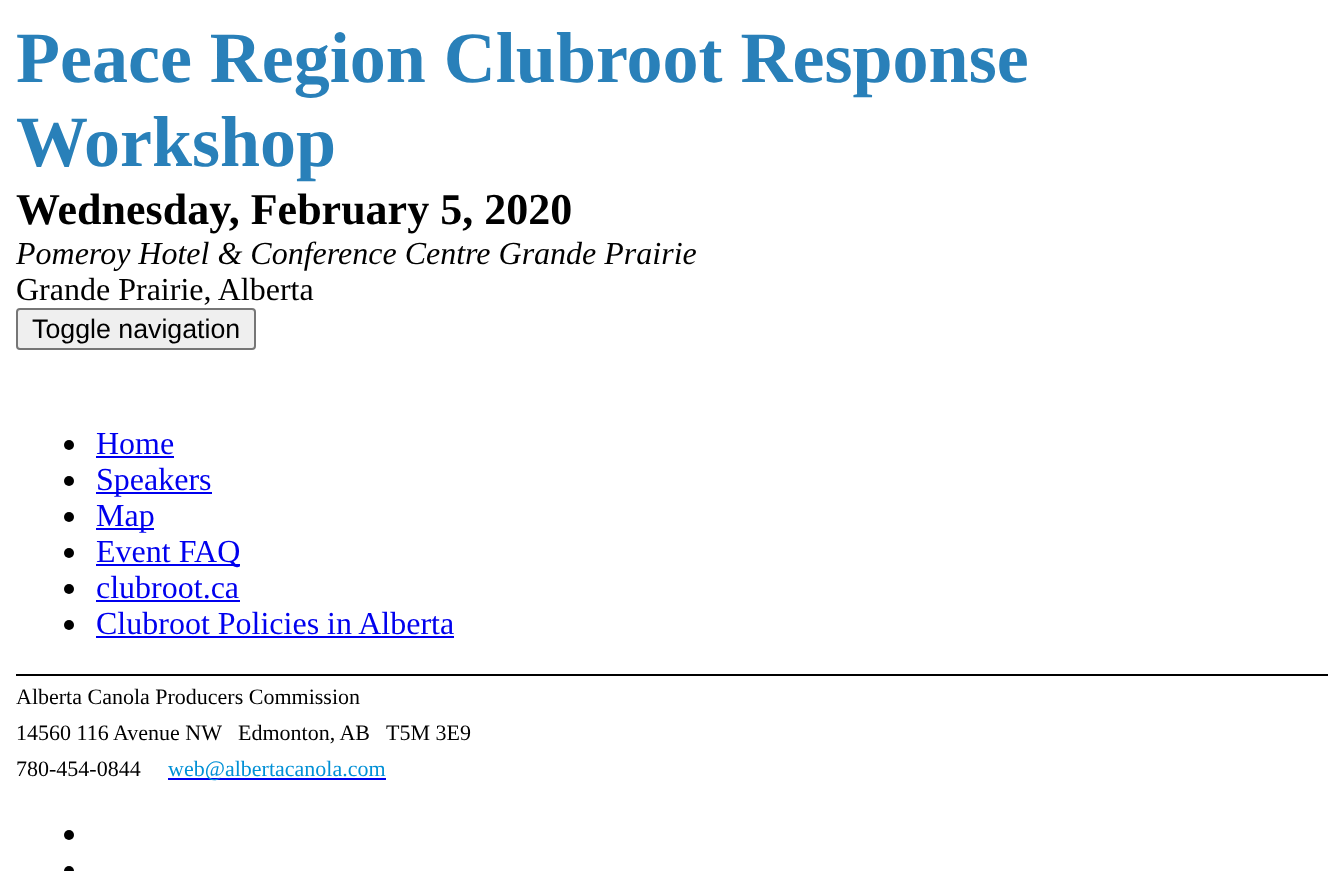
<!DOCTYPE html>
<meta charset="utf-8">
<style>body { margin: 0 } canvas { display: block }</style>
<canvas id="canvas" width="1343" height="871"></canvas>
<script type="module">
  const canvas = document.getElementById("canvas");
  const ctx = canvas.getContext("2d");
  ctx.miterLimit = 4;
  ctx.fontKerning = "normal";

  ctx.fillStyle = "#ffffff";
  ctx.fillRect(0, 0, 1343, 871);
  ctx.font = "bold 72px Liberation Serif";
  ctx.fillStyle = "#2980b9";
  ctx.fillText("Peace Region Clubroot Response", 16, 82);
  ctx.fillText("Workshop", 16, 166);
  ctx.font = "bold 44px Liberation Serif";
  ctx.fillStyle = "#000000";
  ctx.fillText("Wednesday, February 5, 2020", 16, 224);
  ctx.font = "italic 32px Liberation Serif";
  ctx.fillText("Pomeroy Hotel & Conference Centre Grande Prairie", 16, 264);
  ctx.font = "32px Liberation Serif";
  ctx.fillText("Grande Prairie, Alberta", 16, 300);
  ctx.fillStyle = "#efefef";
  ctx.beginPath();
  ctx.roundRect(17, 309, 238, 40, 3);
  ctx.fill();
  ctx.strokeStyle = "#767676";
  ctx.lineWidth = 2;
  ctx.stroke();
  ctx.font = "26.75px Liberation Sans";
  ctx.fillStyle = "#000000";
  ctx.fillText("Toggle navigation", 32, 338);
  ctx.beginPath();
  ctx.arc(69, 445, 5, 0, Math.PI * 2);
  ctx.fill();
  ctx.font = "32px Liberation Serif";
  ctx.fillStyle = "#0000ee";
  ctx.fillText("Home", 96, 454);
  ctx.fillRect(96, 456, 78, 2);
  ctx.fillStyle = "#000000";
  ctx.beginPath();
  ctx.arc(69, 481, 5, 0, Math.PI * 2);
  ctx.fill();
  ctx.fillStyle = "#0000ee";
  ctx.fillRect(96, 492, 116, 2);
  ctx.fillText("Speakers", 96, 490);
  ctx.fillStyle = "#000000";
  ctx.beginPath();
  ctx.arc(69, 517, 5, 0, Math.PI * 2);
  ctx.fill();
  ctx.fillStyle = "#0000ee";
  ctx.fillRect(96, 528, 58, 2);
  ctx.fillText("Map", 96, 526);
  ctx.fillStyle = "#000000";
  ctx.beginPath();
  ctx.arc(69, 553, 5, 0, Math.PI * 2);
  ctx.fill();
  ctx.fillStyle = "#0000ee";
  ctx.fillRect(96, 564, 144, 2);
  ctx.fillText("Event FAQ", 96, 562);
  ctx.fillStyle = "#000000";
  ctx.beginPath();
  ctx.arc(69, 589, 5, 0, Math.PI * 2);
  ctx.fill();
  ctx.fillStyle = "#0000ee";
  ctx.fillText("clubroot.ca", 96, 598);
  ctx.fillRect(96, 600, 144, 2);
  ctx.fillStyle = "#000000";
  ctx.beginPath();
  ctx.arc(69, 625, 5, 0, Math.PI * 2);
  ctx.fill();
  ctx.fillStyle = "#0000ee";
  ctx.fillText("Clubroot Policies in Alberta", 96, 634);
  ctx.fillRect(96, 636, 358, 2);
  ctx.fillStyle = "#000000";
  ctx.fillRect(16, 674, 1312, 2);
  ctx.font = "22px Liberation Serif";
  ctx.fillText("Alberta Canola Producers Commission", 16, 704);
  ctx.fillText("14560 116 Avenue NW   Edmonton, AB   T5M 3E9", 16, 740);
  ctx.fillText("780-454-0844", 16, 776);
  ctx.fillStyle = "#0000ee";
  ctx.fillRect(168, 778, 218, 2);
  ctx.fillStyle = "#0090d6";
  ctx.fillText("web@albertacanola.com", 168, 776);
  ctx.fillStyle = "#000000";
  ctx.beginPath();
  ctx.arc(69, 835, 5, 0, Math.PI * 2);
  ctx.fill();
  ctx.beginPath();
  ctx.arc(69, 871, 5, 0, Math.PI * 2);
  ctx.fill();
</script>
